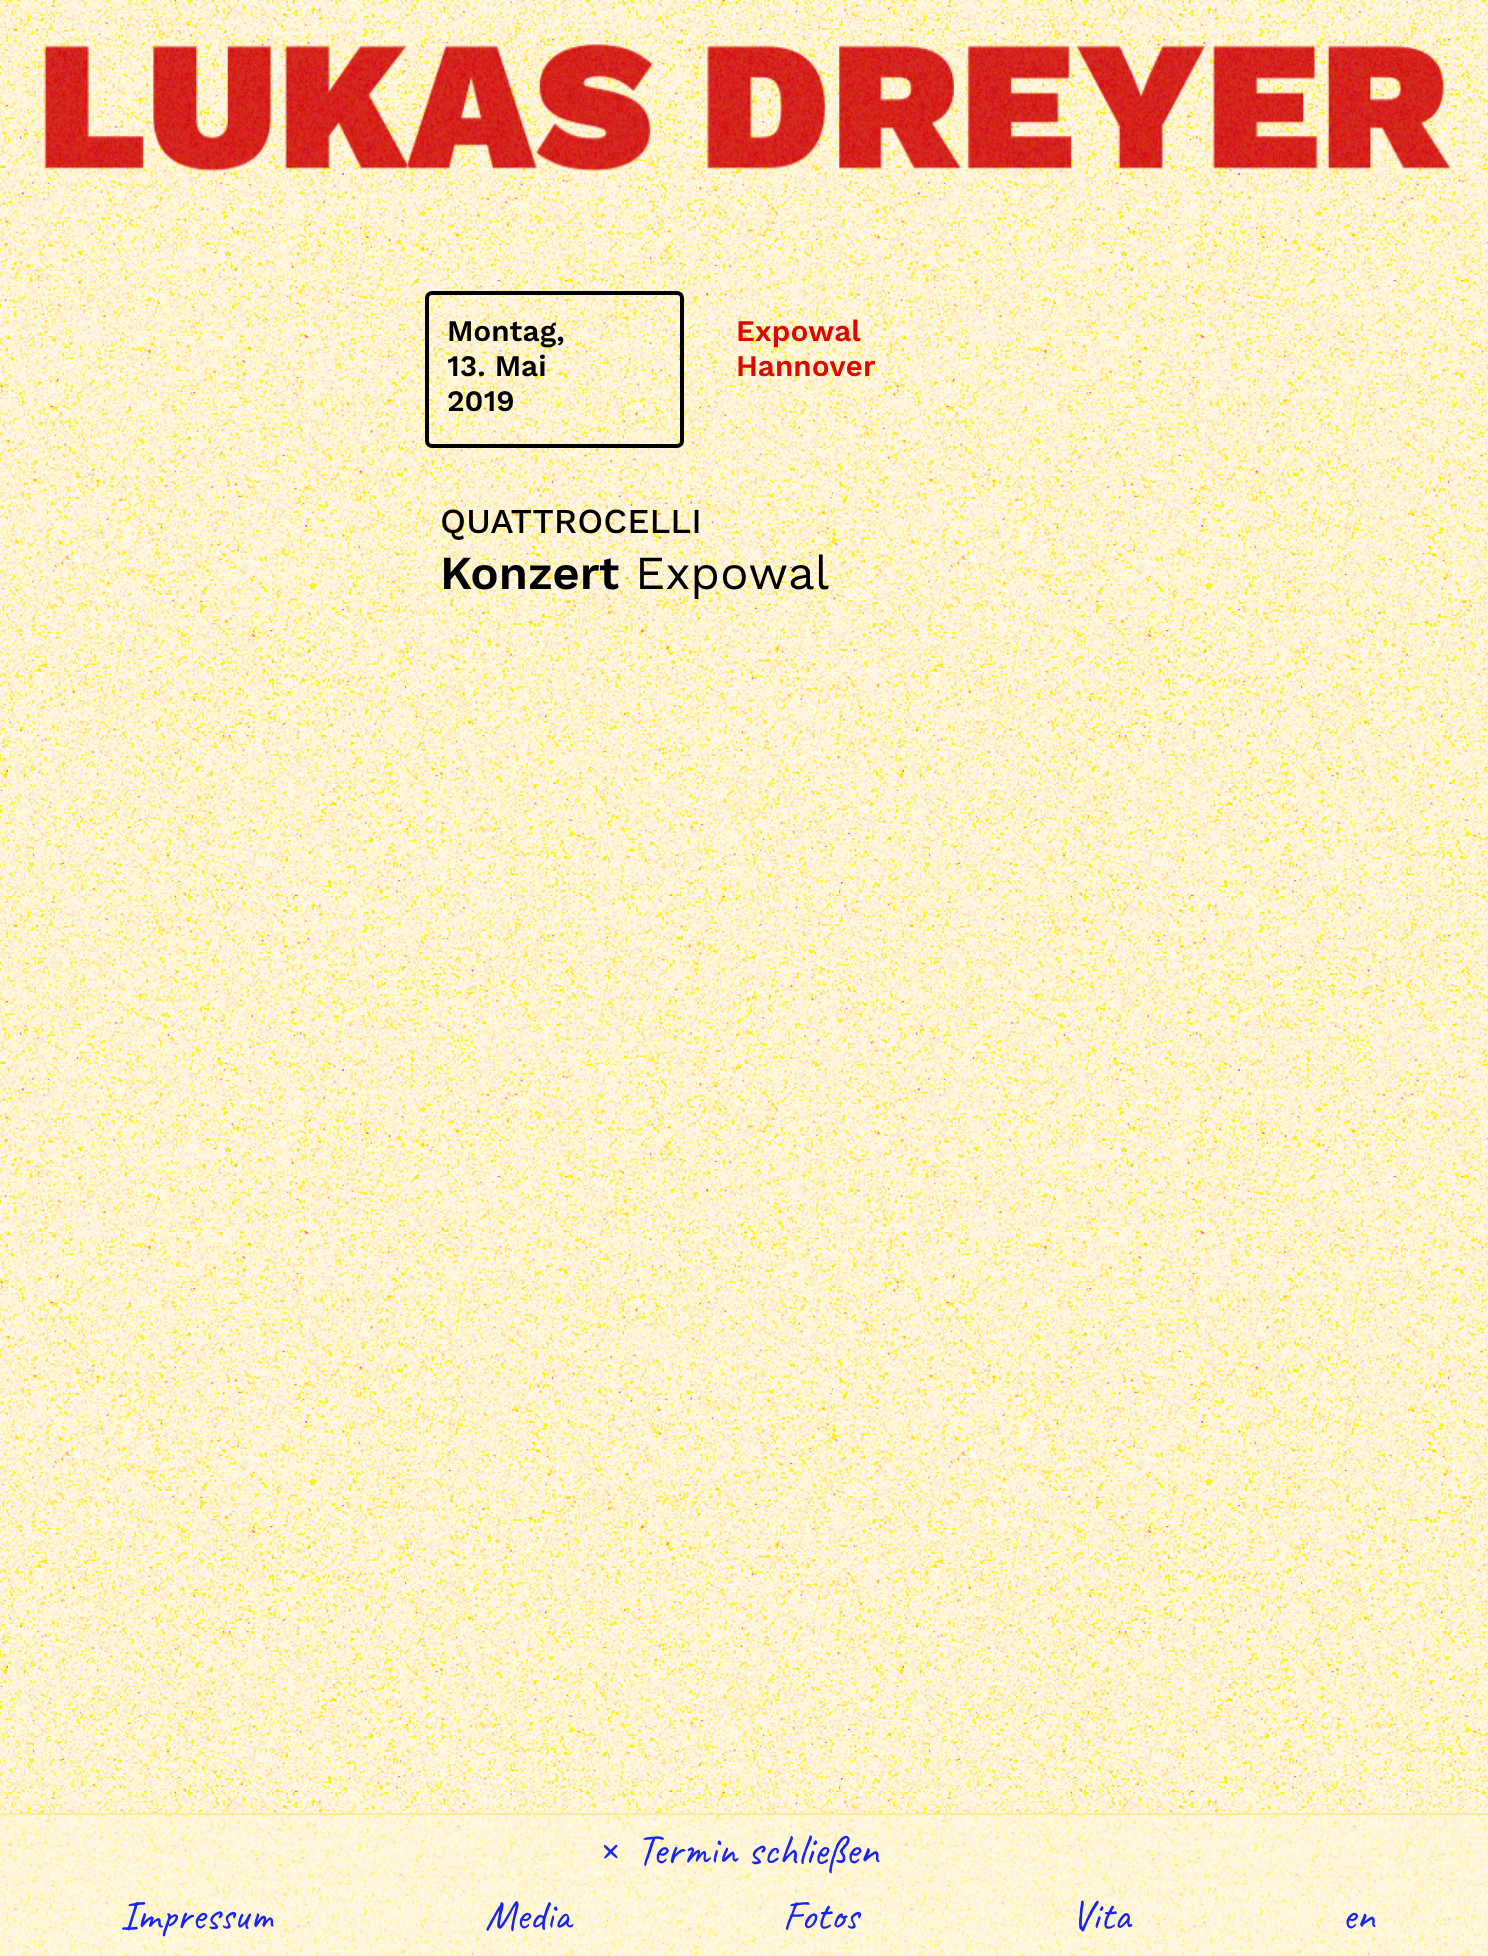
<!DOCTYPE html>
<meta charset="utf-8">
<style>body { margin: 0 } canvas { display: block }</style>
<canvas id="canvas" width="1488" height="1956"></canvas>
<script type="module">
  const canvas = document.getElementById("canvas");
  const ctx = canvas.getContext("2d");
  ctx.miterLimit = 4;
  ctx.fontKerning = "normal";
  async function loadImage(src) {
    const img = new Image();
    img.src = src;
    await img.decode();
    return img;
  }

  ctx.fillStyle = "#ffffff";
  ctx.fillRect(0, 0, 1488, 1956);
  ctx.drawImage(await loadImage("img1.png"), 0, 0, 1488, 1956);
  ctx.drawImage(await loadImage("img2.png"), 44, 44, 1407, 128);
  ctx.beginPath();
  ctx.roundRect(427, 293, 255, 153, 5);
  ctx.strokeStyle = "#000000";
  ctx.lineWidth = 4;
  ctx.stroke();
  ctx.font = "600 29.75px Work Sans";
  ctx.fillStyle = "#000000";
  ctx.fillText("Montag,", 447, 341);
  ctx.fillText("13. Mai", 447, 376);
  ctx.fillText("2019", 447, 411);
  ctx.fillStyle = "#db0700";
  ctx.fillText("Expowal", 736, 341);
  ctx.fillText("Hannover", 736, 376);
  ctx.font = "500 35px Work Sans";
  ctx.fillStyle = "#000000";
  ctx.fillText("QUATTROCELLI", 440, 533);
  ctx.font = "600 47.25px Work Sans";
  ctx.fillText("Konzert", 440, 589);
  ctx.font = "47.25px Work Sans";
  ctx.fillText("Expowal", 635, 589);
  ctx.fillStyle = "rgba(255, 255, 255, 0.9)";
  ctx.fillRect(0, 1878, 1488, 78);
  ctx.fillStyle = "rgba(255, 232, 148, 0.9)";
  ctx.fillRect(0, 1878, 1488, 2);
  ctx.fillStyle = "rgba(255, 243, 199, 0.5)";
  ctx.fillRect(0, 1880, 1488, 76);
  ctx.drawImage(await loadImage("img5.png"), 0, 1880, 1488, 76);
  ctx.fillStyle = "rgba(255, 255, 255, 0.9)";
  ctx.fillRect(0, 1813, 1488, 72);
  ctx.fillStyle = "rgba(255, 232, 148, 0.9)";
  ctx.fillRect(0, 1813, 1488, 2);
  ctx.fillStyle = "rgba(255, 243, 199, 0.5)";
  ctx.fillRect(0, 1815, 1488, 70);
  ctx.drawImage(await loadImage("img3.png"), 0, 1815, 1488, 70);
  ctx.drawImage(await loadImage("img4.png"), 604, 1844, 14, 15);
  ctx.font = "43.75px Caveat";
  ctx.fillStyle = "#1625f3";
  ctx.fillText("Termin schließen", 636, 1864);
  ctx.font = "42px Caveat";
  ctx.fillText("Impressum", 120, 1929);
  ctx.fillText("Media", 485, 1929);
  ctx.fillText("Fotos", 782, 1929);
  ctx.fillText("Vita", 1071, 1929);
  ctx.fillText("en", 1342, 1929);
</script>
